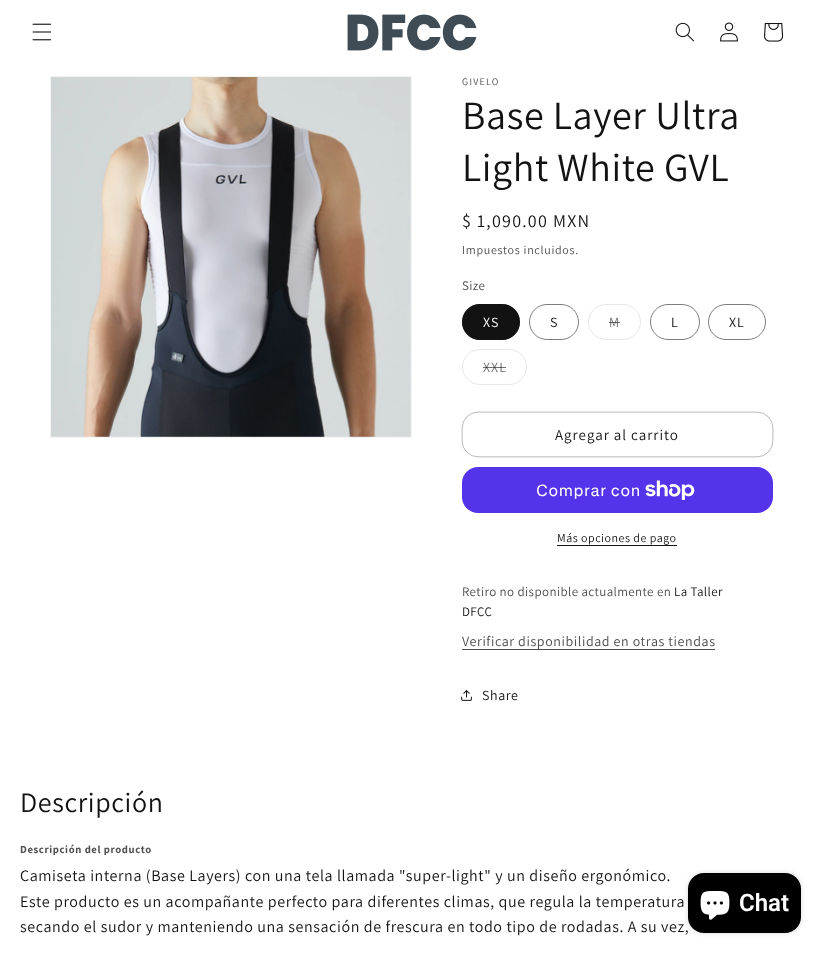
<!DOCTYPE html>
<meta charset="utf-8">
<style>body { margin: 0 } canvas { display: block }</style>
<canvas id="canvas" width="823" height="954"></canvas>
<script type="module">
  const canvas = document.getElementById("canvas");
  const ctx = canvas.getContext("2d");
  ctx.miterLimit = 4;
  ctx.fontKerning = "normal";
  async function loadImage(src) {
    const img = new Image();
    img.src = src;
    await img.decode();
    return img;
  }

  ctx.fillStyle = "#ffffff";
  ctx.fillRect(0, 0, 823, 954);
  ctx.drawImage(await loadImage("img1.png"), 32, 23, 20, 18);
  ctx.drawImage(await loadImage("img2.png"), 347, 14, 130, 37);
  ctx.drawImage(await loadImage("img3.png"), 675, 22, 19, 20);
  ctx.drawImage(await loadImage("img4.png"), 720, 22, 18, 20);
  ctx.drawImage(await loadImage("img5.png"), 764, 23, 20, 19);
  ctx.strokeStyle = "#f3f3f3";
  ctx.strokeRect(50.5, 76.5, 361, 361);
  ctx.drawImage(await loadImage("img6.png"), 51, 77, 360, 360);
  ctx.letterSpacing = "1.25px";
  ctx.font = "10px Assistant";
  ctx.fillStyle = "#4d4d4d";
  ctx.fillText("GIVELO", 462, 85);
  ctx.letterSpacing = "0.6px";
  ctx.font = "40px Assistant";
  ctx.fillStyle = "#121212";
  ctx.fillText("Base Layer Ultra", 462, 129);
  ctx.fillText("Light White GVL", 462, 181);
  ctx.letterSpacing = "1.25px";
  ctx.font = "18px Assistant";
  ctx.fillText("$ 1,090.00 MXN", 462, 227);
  ctx.letterSpacing = "0.7px";
  ctx.font = "12px Assistant";
  ctx.fillStyle = "#4d4d4d";
  ctx.fillText("Impuestos incluidos.", 462, 254);
  ctx.letterSpacing = "0.4px";
  ctx.font = "13px Assistant";
  ctx.fillText("Size", 462, 290);
  ctx.fillStyle = "#121212";
  ctx.beginPath();
  ctx.roundRect(462, 304, 58, 36, 18);
  ctx.fill();
  ctx.beginPath();
  ctx.roundRect(462.5, 304.5, 57, 35, 17.5);
  ctx.strokeStyle = "rgba(18, 18, 18, 0.55)";
  ctx.stroke();
  ctx.letterSpacing = "1px";
  ctx.font = "14px Assistant";
  ctx.fillStyle = "#ffffff";
  ctx.fillText("XS", 483, 327);
  ctx.beginPath();
  ctx.roundRect(529.5, 304.5, 49, 35, 17.5);
  ctx.strokeStyle = "#7d7d7d";
  ctx.stroke();
  ctx.fillStyle = "#121212";
  ctx.fillText("S", 550, 327);
  ctx.beginPath();
  ctx.roundRect(588.5, 304.5, 52, 35, 17.5);
  ctx.strokeStyle = "#e7e7e7";
  ctx.stroke();
  ctx.fillStyle = "#717171";
  ctx.fillText("M", 609, 327);
  ctx.fillStyle = "rgba(18, 18, 18, 0.6)";
  ctx.fillRect(609, 322, 11, 1);
  ctx.beginPath();
  ctx.roundRect(650.5, 304.5, 49, 35, 17.5);
  ctx.strokeStyle = "#7d7d7d";
  ctx.stroke();
  ctx.fillStyle = "#121212";
  ctx.fillText("L", 671, 327);
  ctx.beginPath();
  ctx.roundRect(708.5, 304.5, 57, 35, 17.5);
  ctx.stroke();
  ctx.fillText("XL", 729, 327);
  ctx.beginPath();
  ctx.roundRect(462.5, 349.5, 64, 35, 17.5);
  ctx.strokeStyle = "#e7e7e7";
  ctx.stroke();
  ctx.fillStyle = "#717171";
  ctx.fillText("XXL", 483, 372);
  ctx.fillStyle = "rgba(18, 18, 18, 0.6)";
  ctx.fillRect(483, 367, 23, 1);
  ctx.beginPath();
  ctx.roundRect(462.15, 412.15, 310.7, 44.7, 15.85);
  ctx.strokeStyle = "#121212";
  ctx.lineWidth = 0.3;
  ctx.stroke();
  ctx.font = "15px Assistant";
  ctx.fillStyle = "#121212";
  ctx.fillText("Agregar al carrito", 555, 440);
  ctx.fillStyle = "#5433eb";
  ctx.beginPath();
  ctx.roundRect(462, 467, 311, 46, 16);
  ctx.fill();
  ctx.letterSpacing = "0.6px";
  ctx.font = "16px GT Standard";
  ctx.fillStyle = "#ffffff";
  ctx.fillText("Comprar con", 536, 496);
  ctx.drawImage(await loadImage("img7.png"), 645, 480, 50, 20);
  ctx.letterSpacing = "0.5px";
  ctx.font = "12px Assistant";
  ctx.fillStyle = "#121212";
  ctx.fillText("Más opciones de pago", 557, 542);
  ctx.fillRect(557, 545, 120, 1);
  ctx.letterSpacing = "0.4px";
  ctx.font = "13px Assistant";
  ctx.fillStyle = "#4d4d4d";
  ctx.fillText("Retiro no disponible actualmente en", 462, 596);
  ctx.fillStyle = "#121212";
  ctx.fillText("La Taller", 674, 596);
  ctx.fillText("DFCC", 462, 616);
  ctx.letterSpacing = "0.6px";
  ctx.font = "14px Assistant";
  ctx.fillStyle = "#4d4d4d";
  ctx.fillText("Verificar disponibilidad en otras tiendas", 462, 646);
  ctx.fillRect(462, 649, 253, 1);
  ctx.drawImage(await loadImage("img8.png"), 461, 690, 11, 11);
  ctx.fillStyle = "#121212";
  ctx.fillText("Share", 482, 700);
  ctx.font = "28px Assistant";
  ctx.fillText("Descripción", 20, 812);
  ctx.font = "bold 10.75px Assistant";
  ctx.fillStyle = "#4d4d4d";
  ctx.fillText("Descripción del producto", 20, 853);
  ctx.font = "16px Assistant";
  ctx.fillStyle = "#121212";
  ctx.fillText("Camiseta interna (Base Layers) con una tela llamada \"super-light\" y un diseño ergonómico.", 20, 881);
  ctx.fillText("Este producto es un acompañante perfecto para diferentes climas, que regula la temperatura", 20, 907);
  ctx.fillText("secando el sudor y manteniendo una sensación de frescura en todo tipo de rodadas. A su vez,", 20, 932);
  ctx.fillStyle = "rgba(0, 0, 0, 0.15)";
  ctx.filter = "blur(2.5px)";
  ctx.beginPath();
  ctx.roundRect(688, 873, 113, 60, 16);
  ctx.fill();
  ctx.filter = "none";
  ctx.fillStyle = "#000000";
  ctx.beginPath();
  ctx.roundRect(688, 873, 113, 60, 16);
  ctx.fill();
  ctx.drawImage(await loadImage("img9.png"), 700, 891, 30, 29);
  ctx.letterSpacing = "0px";
  ctx.font = "600 24px Roboto";
  ctx.fillStyle = "#ffffff";
  ctx.fillText("Chat", 739, 911);
</script>
